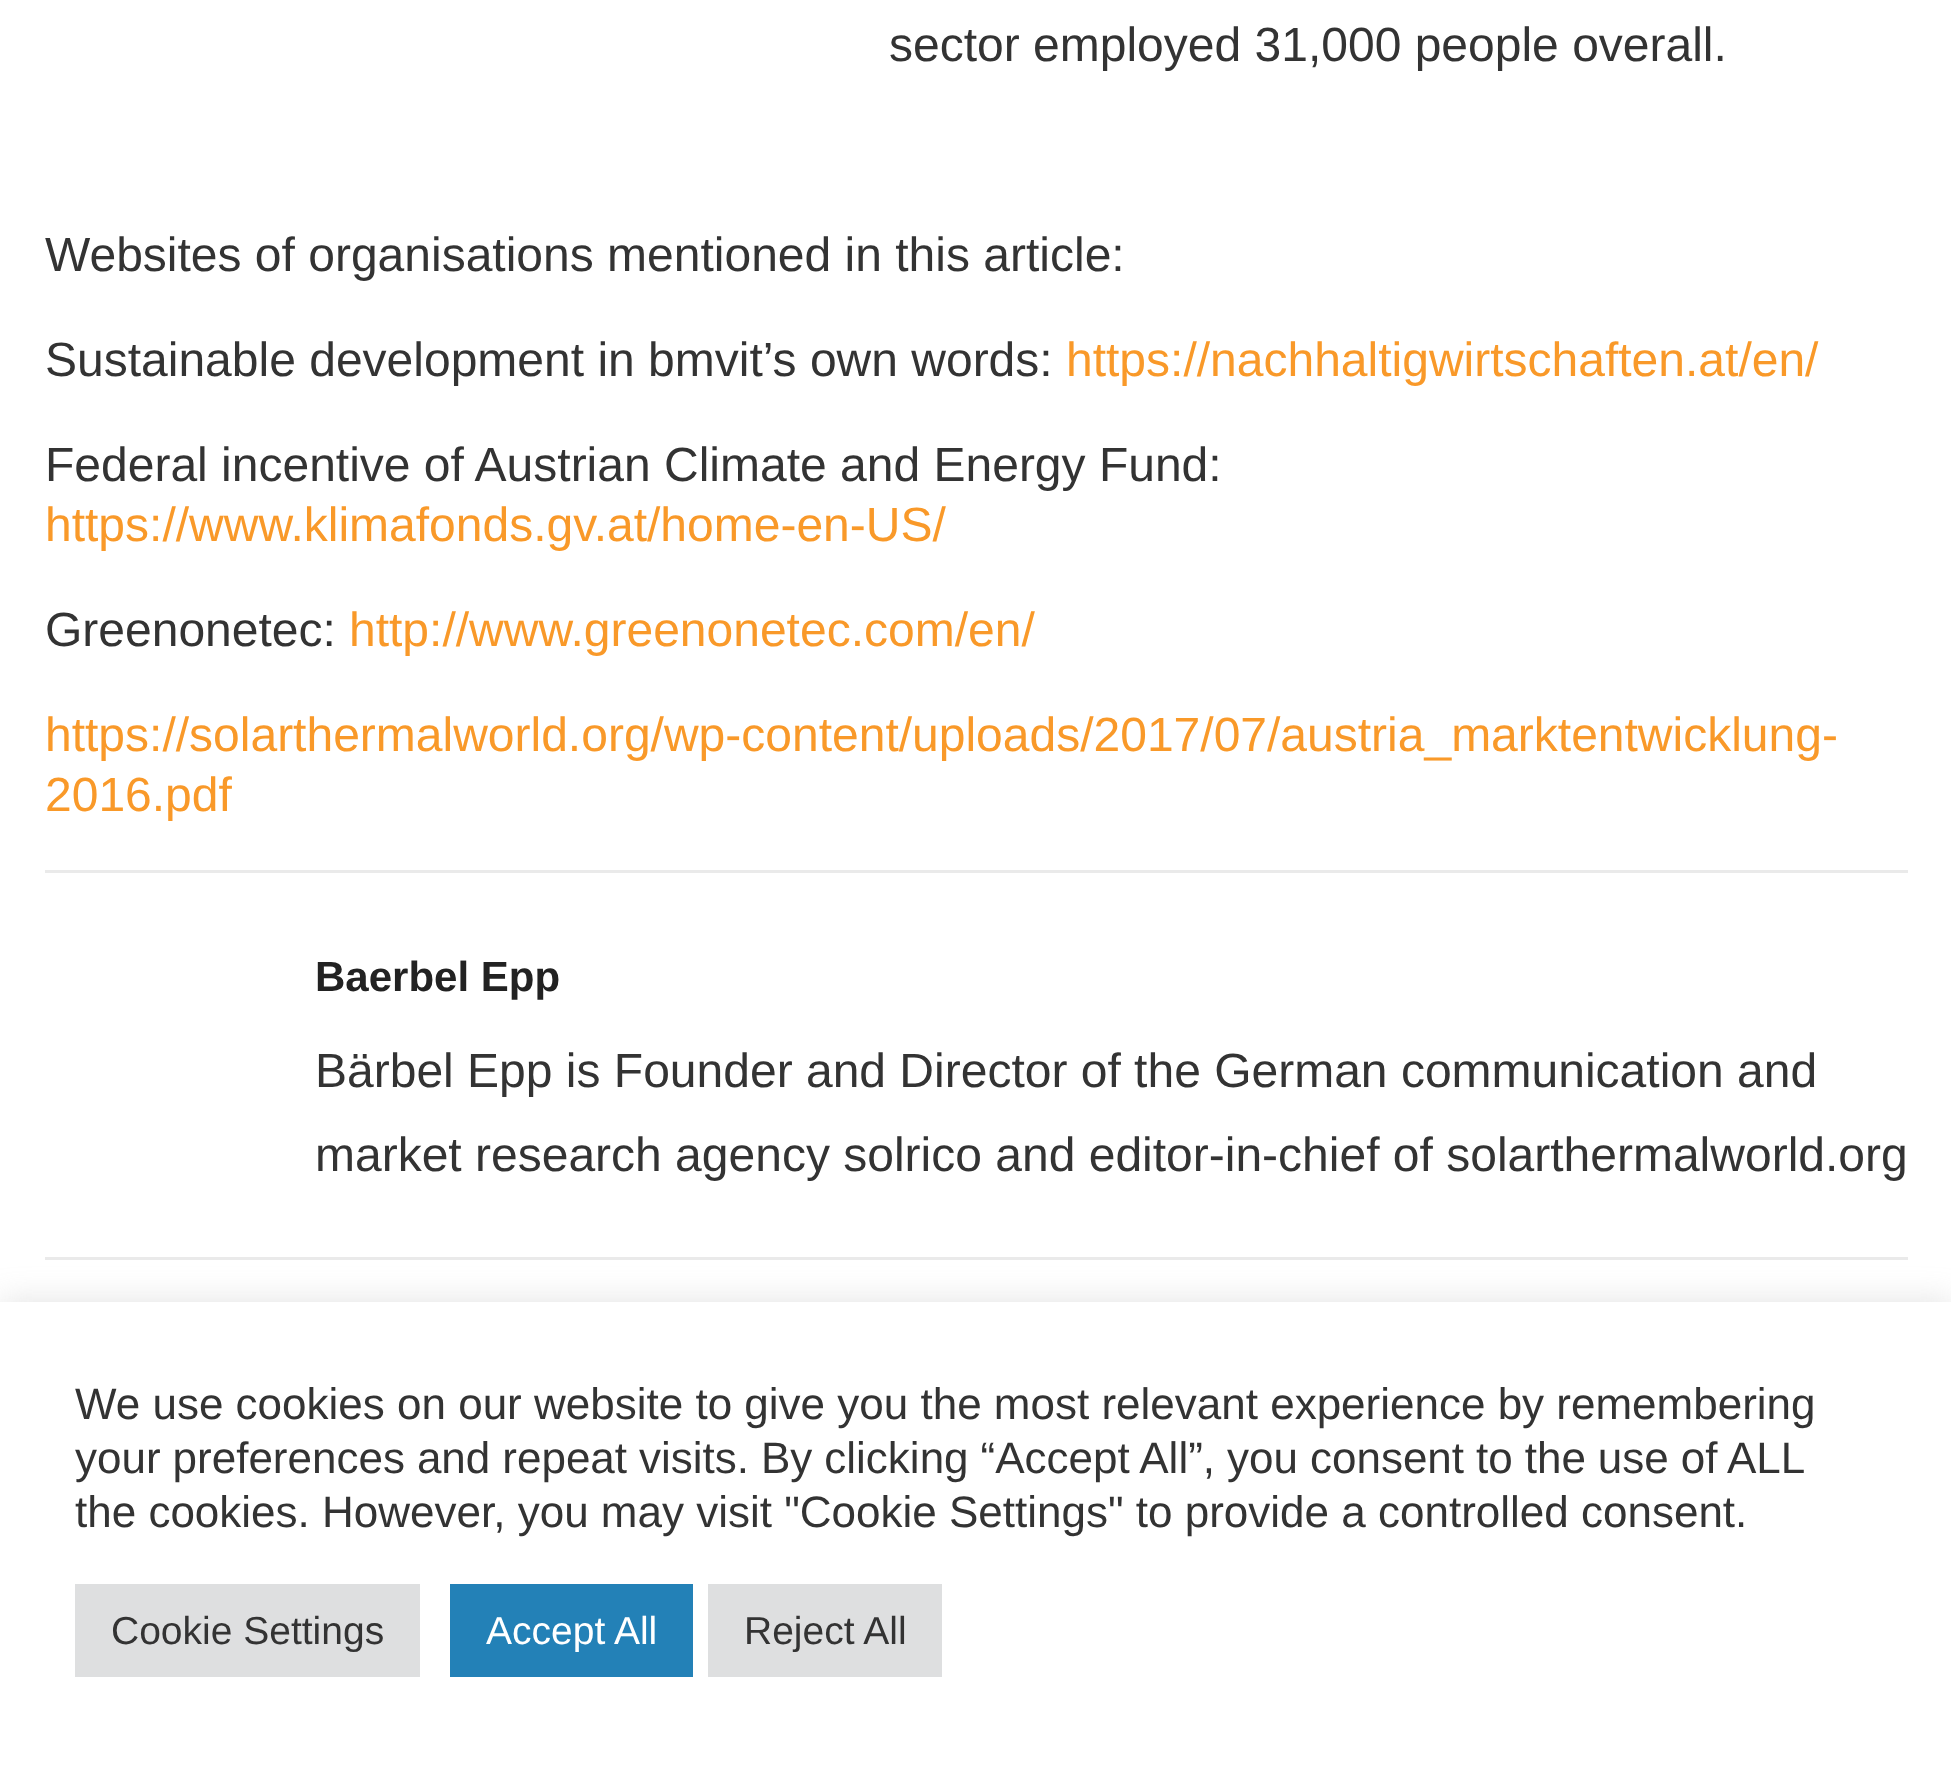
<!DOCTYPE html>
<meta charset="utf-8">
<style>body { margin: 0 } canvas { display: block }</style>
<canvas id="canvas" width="1951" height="1765"></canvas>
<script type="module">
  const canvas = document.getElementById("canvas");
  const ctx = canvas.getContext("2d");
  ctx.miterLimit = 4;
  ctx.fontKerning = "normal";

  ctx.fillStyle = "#ffffff";
  ctx.fillRect(0, 0, 1951, 1765);
  ctx.font = "48px Liberation Sans";
  ctx.fillStyle = "#333333";
  ctx.fillText("sector employed 31,000 people overall.", 889, 61);
  ctx.fillText("Websites of organisations mentioned in this article:", 45, 271);
  ctx.fillText("Sustainable development in bmvit’s own words:", 45, 376);
  ctx.fillStyle = "#f99929";
  ctx.fillText("https://nachhaltigwirtschaften.at/en/", 1066, 376);
  ctx.fillStyle = "#333333";
  ctx.fillText("Federal incentive of Austrian Climate and Energy Fund:", 45, 481);
  ctx.fillStyle = "#f99929";
  ctx.fillText("https://www.klimafonds.gv.at/home-en-US/", 45, 541);
  ctx.fillStyle = "#333333";
  ctx.fillText("Greenonetec:", 45, 646);
  ctx.fillStyle = "#f99929";
  ctx.fillText("http://www.greenonetec.com/en/", 349, 646);
  ctx.fillText("https://solarthermalworld.org/wp-content/uploads/2017/07/austria_marktentwicklung-", 45, 751);
  ctx.fillText("2016.pdf", 45, 811);
  ctx.fillStyle = "#eaeaea";
  ctx.fillRect(45, 870, 1863, 3);
  ctx.fillRect(45, 1257, 1863, 3);
  ctx.font = "bold 42px Liberation Sans";
  ctx.fillStyle = "#222222";
  ctx.fillText("Baerbel Epp", 315, 991);
  ctx.font = "48px Liberation Sans";
  ctx.fillStyle = "#333333";
  ctx.fillText("Bärbel Epp is Founder and Director of the German communication and", 315, 1087);
  ctx.fillText("market research agency solrico and editor-in-chief of solarthermalworld.org", 315, 1171);
  ctx.fillStyle = "rgba(172, 171, 171, 0.3)";
  ctx.filter = "blur(15px)";
  ctx.beginPath();
  ctx.rect(0, 1299, 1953, 465);
  ctx.fill();
  ctx.filter = "none";
  ctx.fillStyle = "#ffffff";
  ctx.fillRect(0, 1302, 1951, 463);
  ctx.font = "44px Liberation Sans";
  ctx.fillStyle = "#333333";
  ctx.fillText("We use cookies on our website to give you the most relevant experience by remembering", 75, 1419);
  ctx.wordSpacing = "-0.25px";
  ctx.fillText("your preferences and repeat visits. By clicking “Accept All”, you consent to the use of ALL", 75, 1473);
  ctx.wordSpacing = "0px";
  ctx.fillText("the cookies. However, you may visit \"Cookie Settings\" to provide a controlled consent.", 75, 1527);
  ctx.fillStyle = "#dedfe0";
  ctx.fillRect(75, 1584, 345, 93);
  ctx.font = "39px Liberation Sans";
  ctx.fillStyle = "#333333";
  ctx.fillText("Cookie Settings", 111, 1644);
  ctx.fillStyle = "#2381b7";
  ctx.fillRect(450, 1584, 243, 93);
  ctx.fillStyle = "#ffffff";
  ctx.fillText("Accept All", 486, 1644);
  ctx.fillStyle = "#dedfe0";
  ctx.fillRect(708, 1584, 234, 93);
  ctx.fillStyle = "#333333";
  ctx.fillText("Reject All", 744, 1644);
</script>
